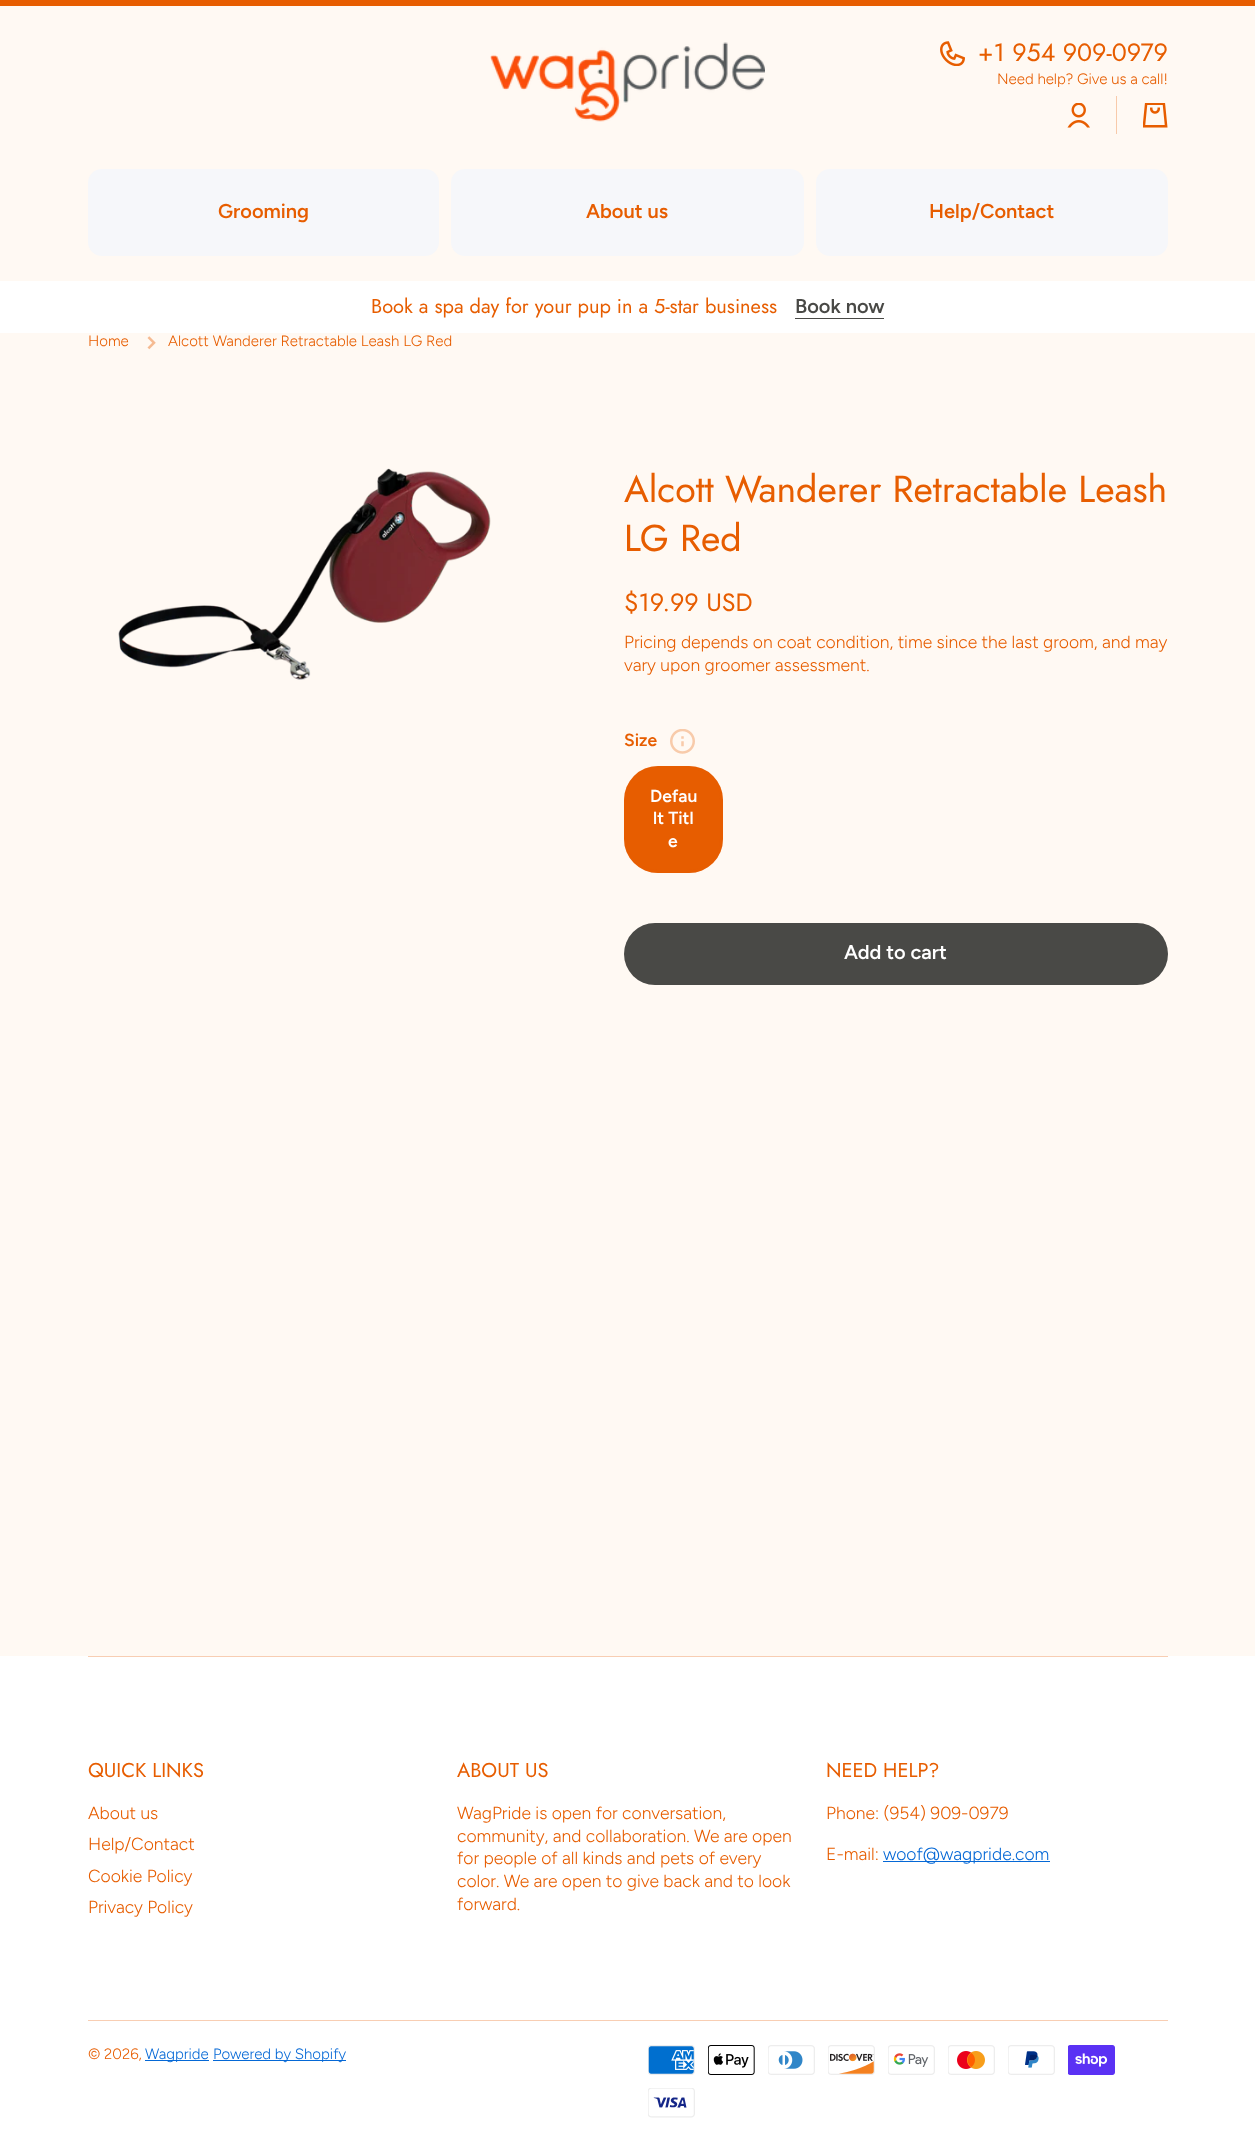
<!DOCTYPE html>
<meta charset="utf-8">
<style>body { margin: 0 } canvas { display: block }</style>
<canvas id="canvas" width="1255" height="2142"></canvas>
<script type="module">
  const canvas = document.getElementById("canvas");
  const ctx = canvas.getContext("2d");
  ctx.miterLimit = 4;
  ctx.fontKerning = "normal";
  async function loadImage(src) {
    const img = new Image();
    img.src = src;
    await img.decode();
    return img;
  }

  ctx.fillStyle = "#fff9f3";
  ctx.fillRect(0, 0, 1255, 2142);
  ctx.fillStyle = "#e75d00";
  ctx.fillRect(0, 0, 1255, 6);
  ctx.drawImage(await loadImage("img1.png"), 490, 42, 275, 80);
  ctx.drawImage(await loadImage("img2.png"), 940, 41, 25, 25);
  ctx.font = "25px Jost";
  ctx.fillText("+1 954 909-0979", 978, 61);
  ctx.font = "300 15px Figtree";
  ctx.fillText("Need help? Give us a call!", 997, 84);
  ctx.drawImage(await loadImage("img3.png"), 1067, 103, 23, 25);
  ctx.fillStyle = "#f8caaa";
  ctx.fillRect(1116, 96, 1, 38);
  ctx.drawImage(await loadImage("img4.png"), 1143, 103, 25, 25);
  ctx.fillStyle = "#f6f7fa";
  ctx.beginPath();
  ctx.roundRect(88, 169, 351, 87, 14);
  ctx.fill();
  ctx.font = "600 20px Figtree";
  ctx.fillStyle = "#e75d00";
  ctx.fillText("Grooming", 218, 218);
  ctx.fillStyle = "#f6f7fa";
  ctx.beginPath();
  ctx.roundRect(451, 169, 353, 87, 14);
  ctx.fill();
  ctx.fillStyle = "#e75d00";
  ctx.fillText("About us", 586, 218);
  ctx.fillStyle = "#f6f7fa";
  ctx.beginPath();
  ctx.roundRect(816, 169, 352, 87, 14);
  ctx.fill();
  ctx.fillStyle = "#e75d00";
  ctx.fillText("Help/Contact", 929, 218);
  ctx.fillStyle = "#ffffff";
  ctx.fillRect(0, 281, 1255, 52);
  ctx.font = "20px Jost";
  ctx.fillStyle = "#e75d00";
  ctx.fillText("Book a spa day for your pup in a 5-star business", 371, 313);
  ctx.font = "600 20px Figtree";
  ctx.fillStyle = "#494946";
  ctx.fillText("Book now", 795, 313);
  ctx.fillRect(795, 318, 89, 1);
  ctx.font = "300 15px Figtree";
  ctx.fillStyle = "#e75d00";
  ctx.fillText("Home", 88, 346);
  ctx.drawImage(await loadImage("img5.png"), 147, 336, 9, 14);
  ctx.fillText("Alcott Wanderer Retractable Leash LG Red", 168, 346);
  ctx.drawImage(await loadImage("img6.png"), 118, 468, 373, 212);
  ctx.font = "37.5px Jost";
  ctx.fillText("Alcott Wanderer Retractable Leash", 624, 502);
  ctx.fillText("LG Red", 624, 551);
  ctx.font = "25px Jost";
  ctx.fillText("$19.99 USD", 624, 611);
  ctx.font = "300 17.5px Figtree";
  ctx.fillText("Pricing depends on coat condition, time since the last groom, and may", 624, 648);
  ctx.fillText("vary upon groomer assessment.", 624, 671);
  ctx.font = "600 17.5px Figtree";
  ctx.fillText("Size", 624, 746);
  ctx.drawImage(await loadImage("img7.png"), 670, 729, 25, 25);
  ctx.beginPath();
  ctx.roundRect(624, 766, 99, 107, 34);
  ctx.fill();
  ctx.beginPath();
  ctx.roundRect(625.5, 767.5, 96, 104, 32.5);
  ctx.strokeStyle = "rgba(231, 93, 0, 0.3)";
  ctx.lineWidth = 3;
  ctx.stroke();
  ctx.fillStyle = "#ffffff";
  ctx.fillText("Defau", 650, 802);
  ctx.fillText("lt Titl", 653, 824);
  ctx.fillText("e", 668, 847);
  ctx.fillStyle = "#494946";
  ctx.beginPath();
  ctx.roundRect(624, 923, 544, 62, 31);
  ctx.fill();
  ctx.font = "600 20px Figtree";
  ctx.fillStyle = "#ffffff";
  ctx.fillText("Add to cart", 844, 959);
  ctx.fillRect(0, 1656, 1255, 486);
  ctx.fillStyle = "#f8ceb3";
  ctx.fillRect(88, 1656, 1080, 1);
  ctx.font = "20px Jost";
  ctx.fillStyle = "#e75d00";
  ctx.fillText("QUICK LINKS", 88, 1777);
  ctx.font = "300 17.5px Figtree";
  ctx.fillText("About us", 88, 1819);
  ctx.fillText("Help/Contact", 88, 1850);
  ctx.fillText("Cookie Policy", 88, 1882);
  ctx.fillText("Privacy Policy", 88, 1913);
  ctx.font = "20px Jost";
  ctx.fillText("ABOUT US", 457, 1777);
  ctx.font = "300 17.5px Figtree";
  ctx.fillText("WagPride is open for conversation,", 457, 1819);
  ctx.fillText("community, and collaboration. We are open", 457, 1842);
  ctx.fillText("for people of all kinds and pets of every", 457, 1864);
  ctx.fillText("color. We are open to give back and to look", 457, 1887);
  ctx.fillText("forward.", 457, 1910);
  ctx.font = "20px Jost";
  ctx.fillText("NEED HELP?", 826, 1777);
  ctx.font = "300 17.5px Figtree";
  ctx.fillText("Phone: (954) 909-0979", 826, 1819);
  ctx.fillText("E-mail:", 826, 1860);
  ctx.fillStyle = "#0568d6";
  ctx.fillRect(883, 1861, 167, 1);
  ctx.fillText("woof@wagpride.com", 883, 1860);
  ctx.fillStyle = "#f8ceb3";
  ctx.fillRect(88, 2020, 1080, 1);
  ctx.font = "300 15px Figtree";
  ctx.fillStyle = "#e75d00";
  ctx.fillText("© 2026,", 88, 2059);
  ctx.fillStyle = "#0568d6";
  ctx.fillRect(145, 2060, 64, 1);
  ctx.fillText("Wagpride", 145, 2059);
  ctx.fillRect(213, 2060, 133, 1);
  ctx.fillText("Powered by Shopify", 213, 2059);
  ctx.drawImage(await loadImage("img8.png"), 648, 2045, 47, 30);
  ctx.drawImage(await loadImage("img9.png"), 708, 2045, 47, 30);
  ctx.drawImage(await loadImage("img10.png"), 768, 2045, 47, 30);
  ctx.drawImage(await loadImage("img11.png"), 828, 2045, 47, 30);
  ctx.drawImage(await loadImage("img12.png"), 888, 2045, 47, 30);
  ctx.drawImage(await loadImage("img13.png"), 948, 2045, 47, 30);
  ctx.drawImage(await loadImage("img14.png"), 1008, 2045, 47, 30);
  ctx.drawImage(await loadImage("img15.png"), 1068, 2045, 47, 30);
  ctx.drawImage(await loadImage("img16.png"), 648, 2088, 47, 30);
</script>
